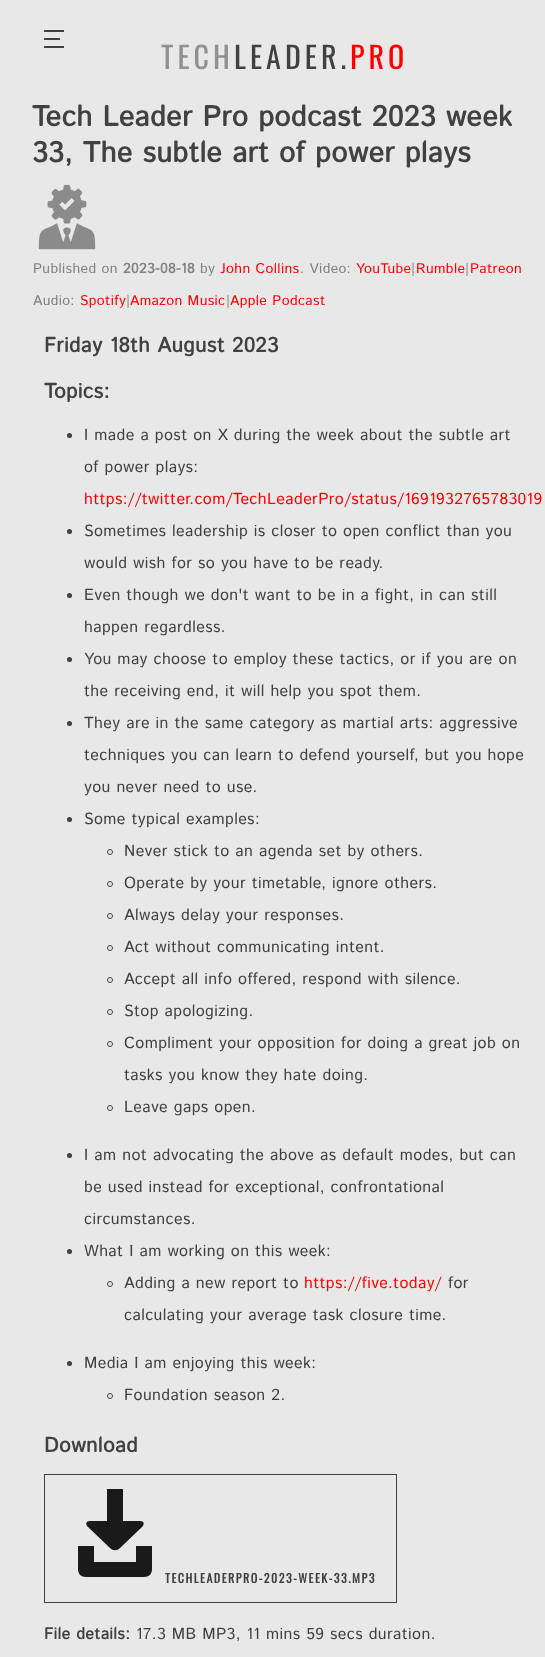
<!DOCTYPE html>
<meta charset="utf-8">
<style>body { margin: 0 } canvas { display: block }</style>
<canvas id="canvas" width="545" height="1657"></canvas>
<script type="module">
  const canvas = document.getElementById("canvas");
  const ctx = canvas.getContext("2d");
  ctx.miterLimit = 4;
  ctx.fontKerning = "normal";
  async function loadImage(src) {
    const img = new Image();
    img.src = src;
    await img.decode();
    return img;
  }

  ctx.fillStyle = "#e8e8e8";
  ctx.fillRect(0, 0, 545, 1657);
  ctx.fillStyle = "#414141";
  ctx.fillRect(44, 38, 16, 2);
  ctx.fillRect(44, 30, 20, 2);
  ctx.fillRect(44, 46, 20, 2);
  ctx.letterSpacing = "4px";
  ctx.font = "30px Oswald";
  ctx.fillStyle = "#919191";
  ctx.fillText("TECH", 161, 69);
  ctx.fillStyle = "#414141";
  ctx.fillText("LEADER.", 234, 69);
  ctx.fillStyle = "#ff0000";
  ctx.fillText("PRO", 350, 69);
  ctx.letterSpacing = "0.4px";
  ctx.font = "bold 28.75px Istok Web";
  ctx.fillStyle = "#414141";
  ctx.fillText("Tech Leader Pro podcast 2023 week", 32, 126);
  ctx.fillText("33, The subtle art of power plays", 32, 162);
  ctx.drawImage(await loadImage("img1.png"), 38, 184, 58, 66);
  ctx.font = "14px Istok Web";
  ctx.fillStyle = "#808080";
  ctx.fillText("Published on", 33, 273);
  ctx.font = "bold 14px Istok Web";
  ctx.fillText("2023-08-18", 123, 273);
  ctx.font = "14px Istok Web";
  ctx.fillText("by", 200, 273);
  ctx.fillStyle = "#ff0000";
  ctx.fillText("John Collins", 220, 273);
  ctx.fillStyle = "#808080";
  ctx.fillText(". Video:", 300, 273);
  ctx.fillStyle = "#ff0000";
  ctx.fillText("YouTube", 356, 273);
  ctx.fillStyle = "#808080";
  ctx.fillText("|", 411, 273);
  ctx.fillStyle = "#ff0000";
  ctx.fillText("Rumble", 416, 273);
  ctx.fillStyle = "#808080";
  ctx.fillText("|", 465, 273);
  ctx.fillStyle = "#ff0000";
  ctx.fillText("Patreon", 470, 273);
  ctx.fillStyle = "#808080";
  ctx.fillText("Audio:", 33, 305);
  ctx.fillStyle = "#ff0000";
  ctx.fillText("Spotify", 80, 305);
  ctx.fillStyle = "#808080";
  ctx.fillText("|", 126, 305);
  ctx.fillStyle = "#ff0000";
  ctx.fillText("Amazon Music", 130, 305);
  ctx.fillStyle = "#808080";
  ctx.fillText("|", 226, 305);
  ctx.fillStyle = "#ff0000";
  ctx.fillText("Apple Podcast", 230, 305);
  ctx.font = "bold 20.75px Istok Web";
  ctx.fillStyle = "#414141";
  ctx.fillText("Friday 18th August 2023", 44, 352);
  ctx.fillText("Topics:", 44, 398);
  ctx.beginPath();
  ctx.arc(69.5, 435.5, 2.5, 0, Math.PI * 2);
  ctx.fill();
  ctx.font = "16px Istok Web";
  ctx.fillText("I made a post on X during the week about the subtle art", 84, 440);
  ctx.fillText("of power plays:", 84, 472);
  ctx.fillStyle = "#ff0000";
  ctx.fillText("https://twitter.com/TechLeaderPro/status/1691932765783019", 84, 504);
  ctx.fillStyle = "#414141";
  ctx.beginPath();
  ctx.arc(69.5, 531.5, 2.5, 0, Math.PI * 2);
  ctx.fill();
  ctx.fillText("Sometimes leadership is closer to open conflict than you", 84, 536);
  ctx.fillText("would wish for so you have to be ready.", 84, 568);
  ctx.beginPath();
  ctx.arc(69.5, 595.5, 2.5, 0, Math.PI * 2);
  ctx.fill();
  ctx.fillText("Even though we don't want to be in a fight, in can still", 84, 600);
  ctx.fillText("happen regardless.", 84, 632);
  ctx.beginPath();
  ctx.arc(69.5, 659.5, 2.5, 0, Math.PI * 2);
  ctx.fill();
  ctx.fillText("You may choose to employ these tactics, or if you are on", 84, 664);
  ctx.fillText("the receiving end, it will help you spot them.", 84, 696);
  ctx.beginPath();
  ctx.arc(69.5, 723.5, 2.5, 0, Math.PI * 2);
  ctx.fill();
  ctx.fillText("They are in the same category as martial arts: aggressive", 84, 728);
  ctx.fillText("techniques you can learn to defend yourself, but you hope", 84, 760);
  ctx.fillText("you never need to use.", 84, 792);
  ctx.beginPath();
  ctx.arc(69.5, 819.5, 2.5, 0, Math.PI * 2);
  ctx.fill();
  ctx.fillText("Some typical examples:", 84, 824);
  ctx.beginPath();
  ctx.arc(110, 852, 2.5, 0, Math.PI * 2);
  ctx.strokeStyle = "#414141";
  ctx.stroke();
  ctx.fillText("Never stick to an agenda set by others.", 124, 856);
  ctx.beginPath();
  ctx.arc(110, 884, 2.5, 0, Math.PI * 2);
  ctx.stroke();
  ctx.fillText("Operate by your timetable, ignore others.", 124, 888);
  ctx.beginPath();
  ctx.arc(110, 916, 2.5, 0, Math.PI * 2);
  ctx.stroke();
  ctx.fillText("Always delay your responses.", 124, 920);
  ctx.beginPath();
  ctx.arc(110, 948, 2.5, 0, Math.PI * 2);
  ctx.stroke();
  ctx.fillText("Act without communicating intent.", 124, 952);
  ctx.beginPath();
  ctx.arc(110, 980, 2.5, 0, Math.PI * 2);
  ctx.stroke();
  ctx.fillText("Accept all info offered, respond with silence.", 124, 984);
  ctx.beginPath();
  ctx.arc(110, 1012, 2.5, 0, Math.PI * 2);
  ctx.stroke();
  ctx.fillText("Stop apologizing.", 124, 1016);
  ctx.beginPath();
  ctx.arc(110, 1044, 2.5, 0, Math.PI * 2);
  ctx.stroke();
  ctx.fillText("Compliment your opposition for doing a great job on", 124, 1048);
  ctx.fillText("tasks you know they hate doing.", 124, 1080);
  ctx.beginPath();
  ctx.arc(110, 1108, 2.5, 0, Math.PI * 2);
  ctx.stroke();
  ctx.fillText("Leave gaps open.", 124, 1112);
  ctx.beginPath();
  ctx.arc(69.5, 1155.5, 2.5, 0, Math.PI * 2);
  ctx.fill();
  ctx.fillText("I am not advocating the above as default modes, but can", 84, 1160);
  ctx.fillText("be used instead for exceptional, confrontational", 84, 1192);
  ctx.fillText("circumstances.", 84, 1224);
  ctx.beginPath();
  ctx.arc(69.5, 1251.5, 2.5, 0, Math.PI * 2);
  ctx.fill();
  ctx.fillText("What I am working on this week:", 84, 1256);
  ctx.beginPath();
  ctx.arc(110, 1284, 2.5, 0, Math.PI * 2);
  ctx.stroke();
  ctx.fillText("Adding a new report to", 124, 1288);
  ctx.fillStyle = "#ff0000";
  ctx.fillText("https://five.today/", 304, 1288);
  ctx.fillStyle = "#414141";
  ctx.fillText("for", 448, 1288);
  ctx.fillText("calculating your average task closure time.", 124, 1320);
  ctx.beginPath();
  ctx.arc(69.5, 1363.5, 2.5, 0, Math.PI * 2);
  ctx.fill();
  ctx.fillText("Media I am enjoying this week:", 84, 1368);
  ctx.beginPath();
  ctx.arc(110, 1396, 2.5, 0, Math.PI * 2);
  ctx.stroke();
  ctx.fillText("Foundation season 2.", 124, 1400);
  ctx.font = "bold 20.75px Istok Web";
  ctx.fillText("Download", 44, 1452);
  ctx.strokeRect(44.5, 1474.5, 352, 128);
  ctx.fillStyle = "#1a1a1a";
  ctx.beginPath();
  ctx.moveTo(136, 1546);
  ctx.lineTo(136, 1562);
  ctx.lineTo(94, 1562);
  ctx.lineTo(94, 1546);
  ctx.lineTo(78, 1546);
  ctx.lineTo(78, 1569);
  ctx.bezierCurveTo(78, 1574, 81, 1577, 86, 1577);
  ctx.lineTo(144, 1577);
  ctx.bezierCurveTo(149, 1577, 152, 1574, 152, 1569);
  ctx.lineTo(152, 1546);
  ctx.closePath();
  ctx.fill();
  ctx.beginPath();
  ctx.moveTo(110, 1548);
  ctx.bezierCurveTo(113, 1551, 117, 1551, 120, 1548);
  ctx.lineTo(142, 1527);
  ctx.bezierCurveTo(145, 1524, 144, 1521, 140, 1521);
  ctx.lineTo(123, 1521);
  ctx.lineTo(123, 1489);
  ctx.lineTo(107, 1489);
  ctx.lineTo(107, 1521);
  ctx.lineTo(90, 1521);
  ctx.bezierCurveTo(86, 1521, 85, 1524, 88, 1527);
  ctx.closePath();
  ctx.fill();
  ctx.letterSpacing = "1.5px";
  ctx.font = "bold 12px Oswald";
  ctx.fillStyle = "#414141";
  ctx.fillText("TECHLEADERPRO-2023-WEEK-33.MP3", 165, 1583);
  ctx.letterSpacing = "0.4px";
  ctx.font = "bold 16px Istok Web";
  ctx.fillText("File details:", 44, 1639);
  ctx.font = "16px Istok Web";
  ctx.fillText("17.3 MB MP3, 11 mins 59 secs duration.", 136, 1639);
</script>
